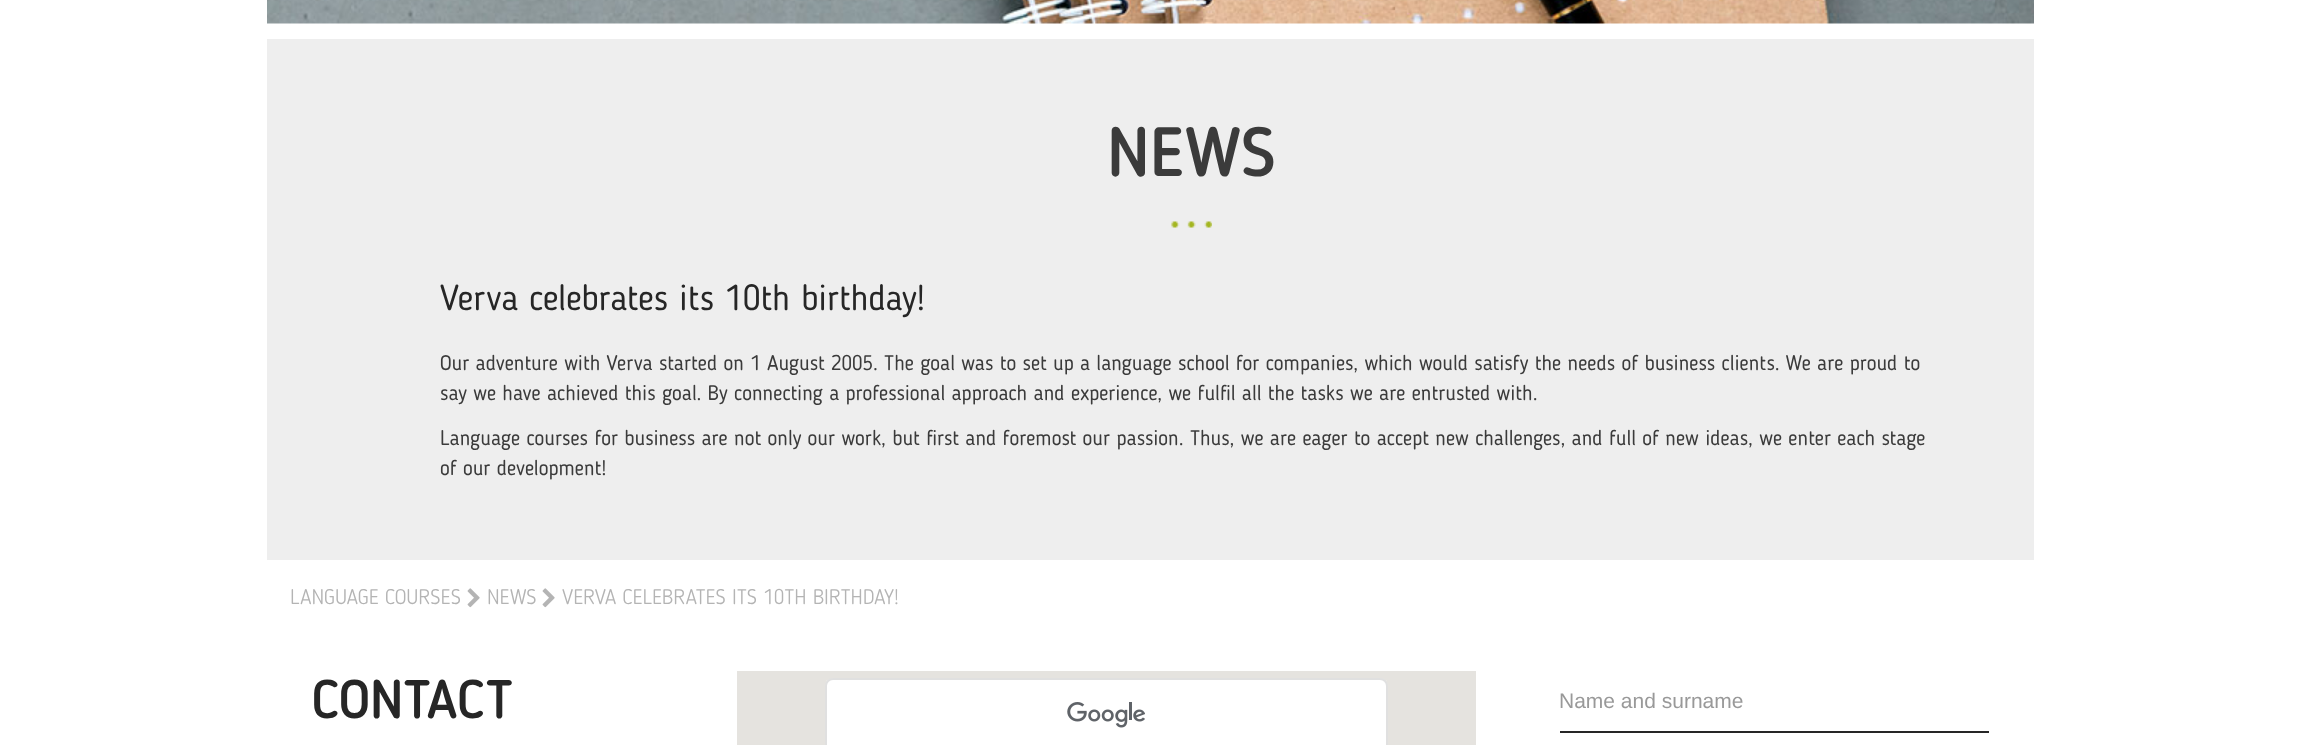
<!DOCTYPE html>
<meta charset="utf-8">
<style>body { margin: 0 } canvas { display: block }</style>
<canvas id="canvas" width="2301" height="745"></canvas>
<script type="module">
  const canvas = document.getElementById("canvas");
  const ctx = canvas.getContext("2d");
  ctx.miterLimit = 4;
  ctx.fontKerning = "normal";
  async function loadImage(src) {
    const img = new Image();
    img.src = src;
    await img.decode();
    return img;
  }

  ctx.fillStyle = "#ffffff";
  ctx.fillRect(0, 0, 2301, 745);
  ctx.drawImage(await loadImage("img1.png"), 267, 0, 1767, 24);
  ctx.fillStyle = "#eeeeee";
  ctx.fillRect(267, 39, 1767, 521);
  ctx.drawImage(await loadImage("img2.png"), 1171, 221, 41, 7);
  ctx.font = "500 69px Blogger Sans";
  ctx.fillStyle = "#3b3b3b";
  ctx.fillText("NEWS", 1107, 176);
  ctx.font = "35.75px Blogger Sans";
  ctx.fillStyle = "#262626";
  ctx.fillText("Verva celebrates its 10th birthday!", 440, 310);
  ctx.font = "21px Blogger Sans";
  ctx.fillStyle = "#3b3b3b";
  ctx.fillText("Our adventure with Verva started on 1 August 2005. The goal was to set up a language school for companies, which would satisfy the needs of business clients. We are proud to", 440, 370);
  ctx.fillText("say we have achieved this goal. By connecting a professional approach and experience, we fulfil all the tasks we are entrusted with.", 440, 400);
  ctx.fillText("Language courses for business are not only our work, but first and foremost our passion. Thus, we are eager to accept new challenges, and full of new ideas, we enter each stage", 440, 445);
  ctx.fillText("of our development!", 440, 475);
  ctx.font = "300 21px Blogger Sans";
  ctx.fillStyle = "#b4b4b4";
  ctx.fillText("LANGUAGE COURSES", 290, 604);
  ctx.drawImage(await loadImage("img3.png"), 467, 588, 13, 20);
  ctx.fillText("NEWS", 487, 604);
  ctx.drawImage(await loadImage("img3.png"), 542, 588, 13, 20);
  ctx.fillText("VERVA CELEBRATES ITS 10TH BIRTHDAY!", 562, 604);
  ctx.font = "500 54px Blogger Sans";
  ctx.fillStyle = "#262626";
  ctx.fillText("CONTACT", 312, 718);
  ctx.fillStyle = "#e5e3df";
  ctx.fillRect(737, 671, 739, 74);
  ctx.fillStyle = "#ffffff";
  ctx.beginPath();
  ctx.roundRect(825, 678, 563, 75, 8);
  ctx.fill();
  ctx.beginPath();
  ctx.roundRect(826, 679, 561, 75, 7);
  ctx.strokeStyle = "rgba(0, 0, 0, 0.12)";
  ctx.lineWidth = 2;
  ctx.stroke();
  ctx.drawImage(await loadImage("img4.png"), 1067, 702, 78, 26);
  ctx.fillStyle = "#262626";
  ctx.fillRect(1560, 731, 429, 2);
  ctx.font = "21px Liberation Sans";
  ctx.fillStyle = "#999999";
  ctx.fillText("Name and surname", 1559, 708);
</script>
